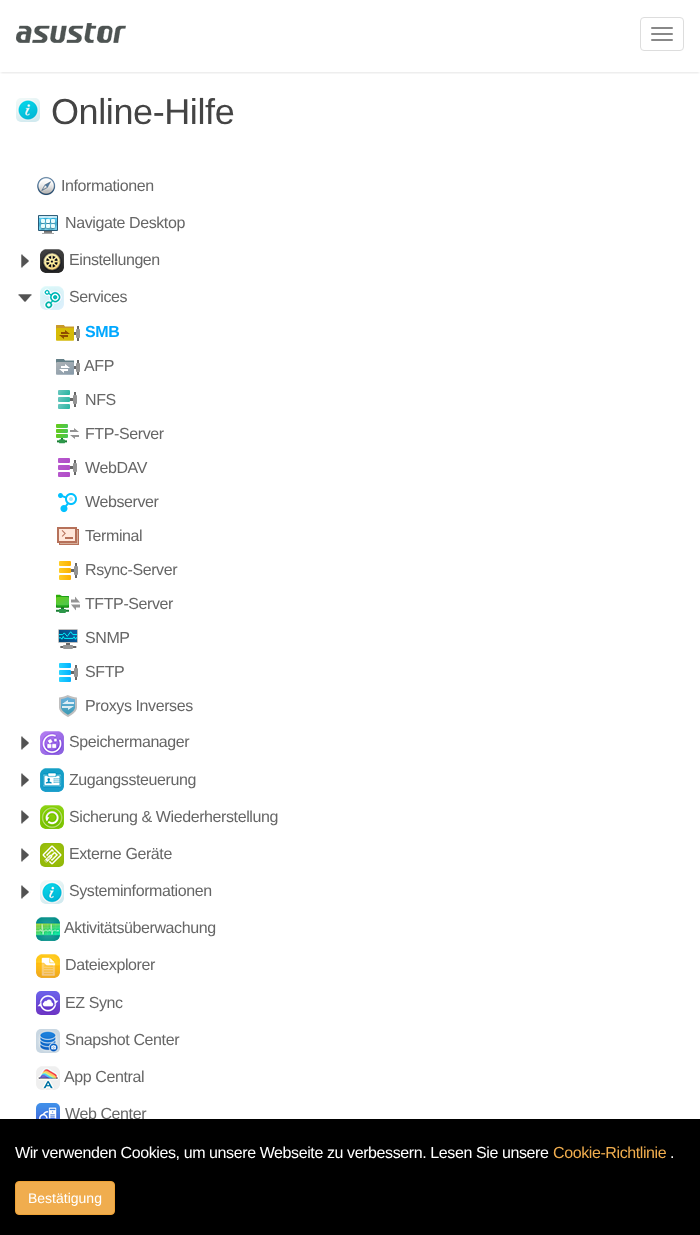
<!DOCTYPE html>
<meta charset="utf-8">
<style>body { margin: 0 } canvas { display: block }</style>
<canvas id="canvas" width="700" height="1235"></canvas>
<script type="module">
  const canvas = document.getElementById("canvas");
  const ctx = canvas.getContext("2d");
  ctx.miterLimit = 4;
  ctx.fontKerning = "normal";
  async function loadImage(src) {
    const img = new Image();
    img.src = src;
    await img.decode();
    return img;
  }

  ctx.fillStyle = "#ffffff";
  ctx.fillRect(0, 0, 700, 1235);
  ctx.save();
  ctx.beginPath();
  ctx.rect(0, 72, 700, 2);
  ctx.clip();
  ctx.fillStyle = "rgba(0, 0, 0, 0.1)";
  ctx.filter = "blur(1px)";
  ctx.beginPath();
  ctx.rect(1, 3, 698, 70);
  ctx.fill();
  ctx.filter = "none";
  ctx.restore();
  ctx.drawImage(await loadImage("img1.png"), 16, 23, 110, 20);
  ctx.beginPath();
  ctx.roundRect(640.5, 17.5, 43, 33, 3.5);
  ctx.strokeStyle = "#dddddd";
  ctx.stroke();
  ctx.fillStyle = "#888888";
  ctx.beginPath();
  ctx.roundRect(651, 27, 22, 2, 1);
  ctx.fill();
  ctx.beginPath();
  ctx.roundRect(651, 33, 22, 2, 1);
  ctx.fill();
  ctx.beginPath();
  ctx.roundRect(651, 39, 22, 2, 1);
  ctx.fill();
  ctx.drawImage(await loadImage("img2.png"), 16, 98, 24, 24);
  ctx.letterSpacing = "-0.4px";
  ctx.font = "36px Liberation Sans";
  ctx.fillStyle = "#444444";
  ctx.fillText("Online-Hilfe", 51, 124);
  ctx.drawImage(await loadImage("img3.png"), 37, 176, 19, 20);
  ctx.font = "16px Liberation Sans";
  ctx.fillStyle = "#666666";
  ctx.fillText("Informationen", 61, 191);
  ctx.drawImage(await loadImage("img4.png"), 38, 215, 20, 19);
  ctx.fillText("Navigate Desktop", 65, 228);
  ctx.drawImage(await loadImage("img5.png"), 21, 254, 8, 14);
  ctx.drawImage(await loadImage("img6.png"), 40, 249, 24, 24);
  ctx.fillText("Einstellungen", 69, 265);
  ctx.drawImage(await loadImage("img7.png"), 18, 294, 14, 8);
  ctx.drawImage(await loadImage("img8.png"), 40, 286, 24, 24);
  ctx.fillText("Services", 69, 302);
  ctx.drawImage(await loadImage("img9.png"), 56, 325, 24, 16);
  ctx.font = "bold 16px Liberation Sans";
  ctx.fillStyle = "#00a8ff";
  ctx.fillText("SMB", 85, 337);
  ctx.drawImage(await loadImage("img10.png"), 56, 359, 24, 16);
  ctx.font = "16px Liberation Sans";
  ctx.fillStyle = "#666666";
  ctx.fillText("AFP", 84, 371);
  ctx.drawImage(await loadImage("img11.png"), 58, 390, 19, 19);
  ctx.fillText("NFS", 85, 405);
  ctx.drawImage(await loadImage("img12.png"), 56, 424, 23, 20);
  ctx.fillText("FTP-Server", 85, 439);
  ctx.drawImage(await loadImage("img13.png"), 58, 458, 19, 19);
  ctx.fillText("WebDAV", 85, 473);
  ctx.drawImage(await loadImage("img14.png"), 58, 493, 19, 20);
  ctx.fillText("Webserver", 85, 507);
  ctx.drawImage(await loadImage("img15.png"), 57, 527, 22, 18);
  ctx.fillText("Terminal", 85, 541);
  ctx.drawImage(await loadImage("img16.png"), 59, 561, 19, 19);
  ctx.fillText("Rsync-Server", 85, 575);
  ctx.drawImage(await loadImage("img17.png"), 56, 594, 24, 19);
  ctx.fillText("TFTP-Server", 85, 609);
  ctx.drawImage(await loadImage("img18.png"), 58, 629, 20, 20);
  ctx.fillText("SNMP", 85, 643);
  ctx.drawImage(await loadImage("img19.png"), 59, 663, 19, 19);
  ctx.fillText("SFTP", 85, 677);
  ctx.drawImage(await loadImage("img20.png"), 59, 695, 18, 22);
  ctx.fillText("Proxys Inverses", 85, 711);
  ctx.drawImage(await loadImage("img5.png"), 21, 736, 8, 14);
  ctx.drawImage(await loadImage("img21.png"), 40, 731, 24, 24);
  ctx.fillText("Speichermanager", 69, 747);
  ctx.drawImage(await loadImage("img5.png"), 21, 773, 8, 14);
  ctx.drawImage(await loadImage("img22.png"), 40, 768, 24, 24);
  ctx.fillText("Zugangssteuerung", 69, 785);
  ctx.drawImage(await loadImage("img5.png"), 21, 810, 8, 14);
  ctx.drawImage(await loadImage("img23.png"), 40, 805, 24, 24);
  ctx.fillText("Sicherung & Wiederherstellung", 69, 822);
  ctx.drawImage(await loadImage("img5.png"), 21, 848, 8, 14);
  ctx.drawImage(await loadImage("img24.png"), 40, 843, 24, 24);
  ctx.fillText("Externe Geräte", 69, 859);
  ctx.drawImage(await loadImage("img5.png"), 21, 885, 8, 14);
  ctx.drawImage(await loadImage("img25.png"), 40, 880, 24, 24);
  ctx.fillText("Systeminformationen", 69, 896);
  ctx.drawImage(await loadImage("img26.png"), 36, 917, 24, 24);
  ctx.fillText("Aktivitätsüberwachung", 64, 933);
  ctx.drawImage(await loadImage("img27.png"), 36, 954, 24, 24);
  ctx.fillText("Dateiexplorer", 65, 970);
  ctx.drawImage(await loadImage("img28.png"), 36, 991, 24, 24);
  ctx.fillText("EZ Sync", 65, 1008);
  ctx.drawImage(await loadImage("img29.png"), 36, 1029, 24, 24);
  ctx.fillText("Snapshot Center", 65, 1045);
  ctx.drawImage(await loadImage("img30.png"), 36, 1066, 24, 24);
  ctx.fillText("App Central", 64, 1082);
  ctx.drawImage(await loadImage("img31.png"), 36, 1103, 24, 16);
  ctx.fillText("Web Center", 65, 1119);
  ctx.fillStyle = "#000000";
  ctx.fillRect(0, 1119, 700, 116);
  ctx.fillStyle = "#ffffff";
  ctx.fillText("Wir verwenden Cookies, um unsere Webseite zu verbessern. Lesen Sie unsere", 15, 1158);
  ctx.fillStyle = "#f0ad4e";
  ctx.fillText("Cookie-Richtlinie", 553, 1158);
  ctx.fillStyle = "#ffffff";
  ctx.fillText(".", 670, 1158);
  ctx.fillStyle = "#f0ad4e";
  ctx.beginPath();
  ctx.roundRect(15.5, 1181.5, 99, 33, 3.5);
  ctx.fill();
  ctx.strokeStyle = "#eea236";
  ctx.stroke();
  ctx.letterSpacing = "0px";
  ctx.font = "14px Liberation Sans";
  ctx.fillStyle = "#ffffff";
  ctx.fillText("Bestätigung", 28, 1203);
</script>
